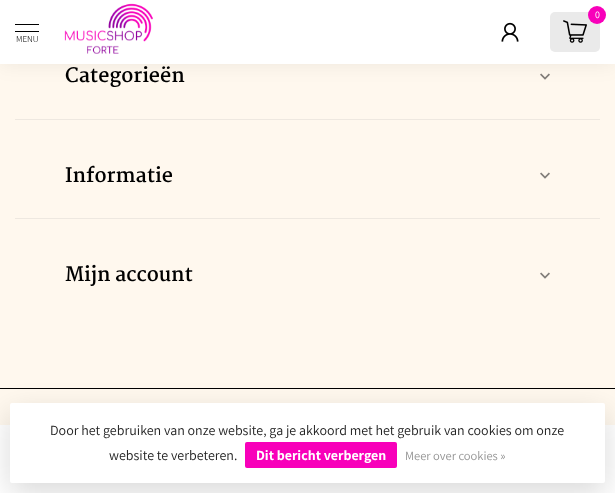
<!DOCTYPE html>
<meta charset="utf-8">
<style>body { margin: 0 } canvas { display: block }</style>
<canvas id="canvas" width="615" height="493"></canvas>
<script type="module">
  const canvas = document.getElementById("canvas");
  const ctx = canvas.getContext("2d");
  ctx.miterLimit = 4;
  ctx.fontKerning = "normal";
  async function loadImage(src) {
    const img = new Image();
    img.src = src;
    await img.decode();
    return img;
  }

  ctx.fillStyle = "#fff8ee";
  ctx.fillRect(0, 0, 615, 493);
  ctx.drawImage(await loadImage("img4.png"), 540, 73, 10, 7);
  ctx.fillStyle = "rgba(0, 0, 0, 0.07)";
  ctx.filter = "blur(10px)";
  ctx.beginPath();
  ctx.rect(0, -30, 615, 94);
  ctx.fill();
  ctx.filter = "none";
  ctx.fillStyle = "#ffffff";
  ctx.fillRect(0, 0, 615, 64);
  ctx.fillStyle = "#eaeaea";
  ctx.beginPath();
  ctx.roundRect(550, 12, 50, 40, 5);
  ctx.fill();
  ctx.fillStyle = "#f800ba";
  ctx.beginPath();
  ctx.arc(597, 15, 9, 0, Math.PI * 2);
  ctx.fill();
  ctx.font = "10px Assistant";
  ctx.fillStyle = "#ffffff";
  ctx.fillText("0", 595, 18);
  ctx.drawImage(await loadImage("img1.png"), 563, 20, 24, 23);
  ctx.drawImage(await loadImage("img2.png"), 501, 22, 18, 20);
  ctx.fillStyle = "#000000";
  ctx.fillRect(15, 24, 24, 1);
  ctx.fillRect(15, 31, 24, 1);
  ctx.font = "300 9px Assistant";
  ctx.fillText("MENU", 16, 42);
  ctx.drawImage(await loadImage("img3.png"), 64, 3, 89, 51);
  ctx.fillStyle = "#eee8e0";
  ctx.fillRect(15, 119, 585, 1);
  ctx.font = "bold 19.5px Martel";
  ctx.fillStyle = "#000000";
  ctx.fillText("Categorieën", 65, 82);
  ctx.fillStyle = "#eee8e0";
  ctx.fillRect(15, 218, 585, 1);
  ctx.fillStyle = "#000000";
  ctx.fillText("Informatie", 65, 182);
  ctx.drawImage(await loadImage("img4.png"), 540, 172, 10, 7);
  ctx.fillText("Mijn account", 65, 281);
  ctx.drawImage(await loadImage("img4.png"), 540, 272, 10, 7);
  ctx.fillRect(0, 388, 615, 1);
  ctx.fillStyle = "#ffffff";
  ctx.fillRect(0, 425, 615, 68);
  ctx.fillStyle = "rgba(0, 0, 0, 0.15)";
  ctx.filter = "blur(15px)";
  ctx.beginPath();
  ctx.roundRect(10, 413, 595, 80, 2);
  ctx.fill();
  ctx.filter = "none";
  ctx.fillStyle = "#ffffff";
  ctx.beginPath();
  ctx.roundRect(10, 403, 595, 80, 2);
  ctx.fill();
  ctx.font = "14px Assistant";
  ctx.fillStyle = "#222222";
  ctx.fillText("Door het gebruiken van onze website, ga je akkoord met het gebruik van cookies om onze", 50, 435);
  ctx.fillText("website te verbeteren.", 109, 460);
  ctx.fillStyle = "#f800ba";
  ctx.beginPath();
  ctx.roundRect(245, 442, 152, 26, 2);
  ctx.fill();
  ctx.font = "bold 14px Assistant";
  ctx.fillStyle = "#ffffff";
  ctx.fillText("Dit bericht verbergen", 256, 460);
  ctx.font = "12.5px Assistant";
  ctx.fillStyle = "#949494";
  ctx.fillText("Meer over cookies »", 405, 460);
</script>
